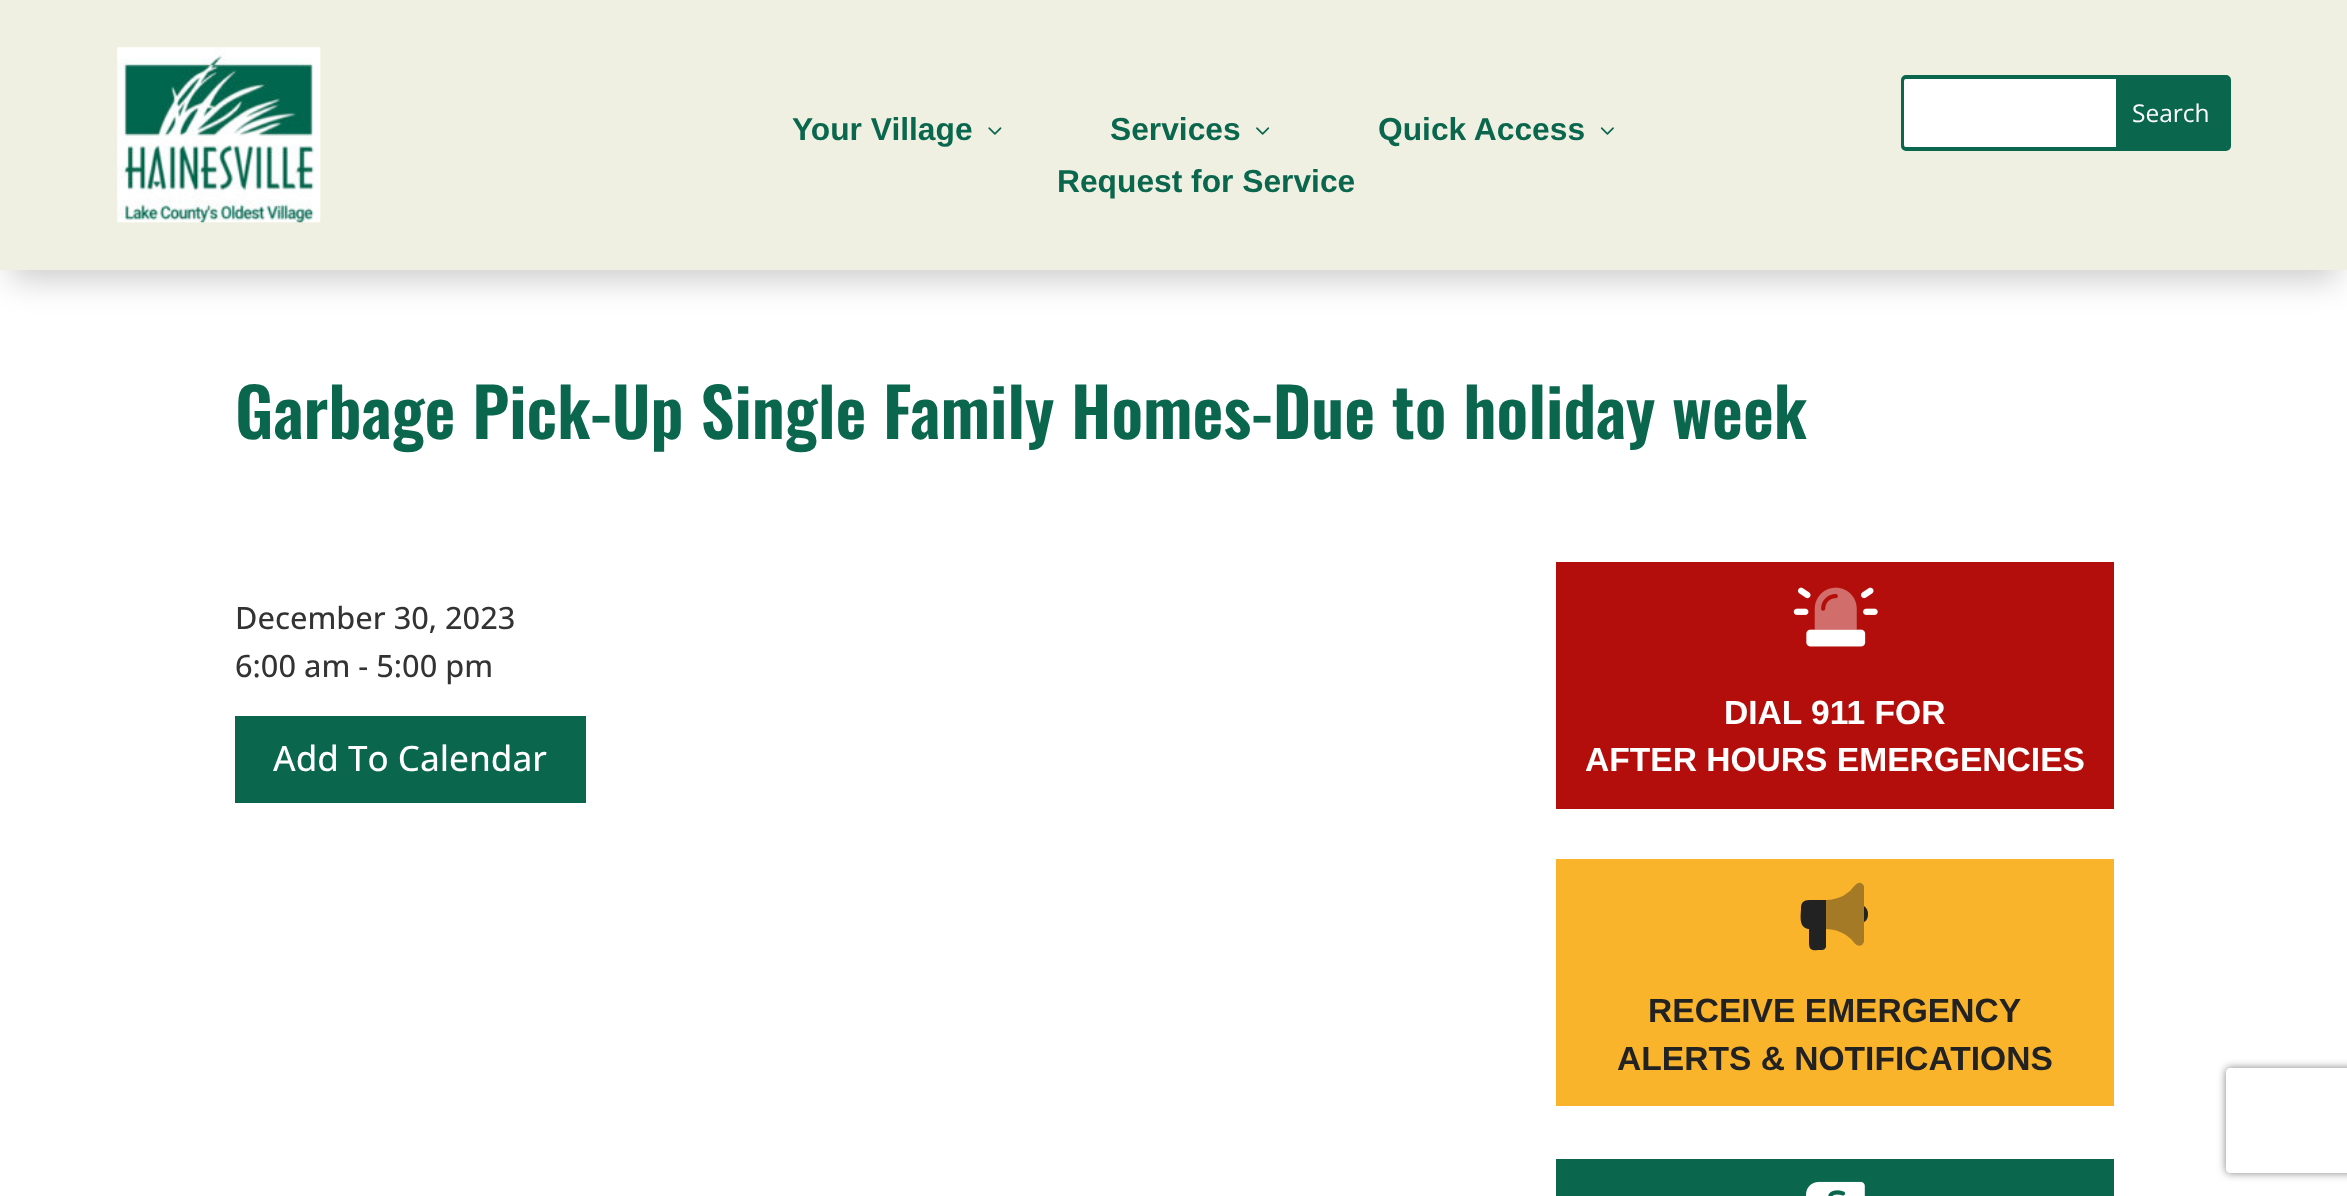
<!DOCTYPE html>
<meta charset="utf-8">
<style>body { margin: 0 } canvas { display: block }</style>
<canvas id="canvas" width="2347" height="1196"></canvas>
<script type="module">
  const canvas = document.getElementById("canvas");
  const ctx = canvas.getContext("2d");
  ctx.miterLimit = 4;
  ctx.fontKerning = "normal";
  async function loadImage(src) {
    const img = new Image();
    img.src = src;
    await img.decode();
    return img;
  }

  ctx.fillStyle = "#ffffff";
  ctx.fillRect(0, 0, 2347, 1196);
  ctx.fillStyle = "rgba(0, 0, 0, 0.2)";
  ctx.filter = "blur(16px)";
  ctx.beginPath();
  ctx.rect(11, 32, 2327, 248);
  ctx.fill();
  ctx.filter = "none";
  ctx.fillStyle = "#f0f0e2";
  ctx.fillRect(0, 0, 2347, 270);
  ctx.drawImage(await loadImage("img1.png"), 117, 47, 204, 176);
  ctx.beginPath();
  ctx.roundRect(1903, 77, 326, 72, 3);
  ctx.strokeStyle = "#0b664e";
  ctx.lineWidth = 4;
  ctx.stroke();
  ctx.fillStyle = "#ffffff";
  ctx.beginPath();
  ctx.roundRect(1904, 79, 212, 68, [2, 0, 0, 2]);
  ctx.fill();
  ctx.fillStyle = "#0b664e";
  ctx.beginPath();
  ctx.roundRect(2116, 79, 112, 68, [0, 2, 2, 0]);
  ctx.fill();
  ctx.font = "24.5px Open Sans";
  ctx.fillStyle = "#ffffff";
  ctx.fillText("Search", 2132, 122);
  ctx.font = "bold 31.75px Liberation Sans";
  ctx.fillStyle = "#0b664e";
  ctx.fillText("Your Village", 792, 140);
  ctx.drawImage(await loadImage("img2.png"), 988, 127, 14, 8);
  ctx.fillText("Services", 1110, 140);
  ctx.drawImage(await loadImage("img3.png"), 1256, 127, 14, 8);
  ctx.fillText("Quick Access", 1378, 140);
  ctx.drawImage(await loadImage("img4.png"), 1600, 127, 14, 8);
  ctx.fillText("Request for Service", 1057, 192);
  ctx.font = "600 67.2px Oswald";
  ctx.fillText("Garbage Pick-Up Single Family Homes-Due to holiday week", 235, 439);
  ctx.font = "500 30.75px Open Sans";
  ctx.fillStyle = "#333333";
  ctx.fillText("December 30, 2023", 235, 629);
  ctx.fillText("6:00 am - 5:00 pm", 235, 677);
  ctx.fillStyle = "#0b664e";
  ctx.fillRect(235, 716, 351, 87);
  ctx.font = "500 35px Open Sans";
  ctx.fillStyle = "#ffffff";
  ctx.fillText("Add To Calendar", 273, 771);
  ctx.fillStyle = "#b30e0b";
  ctx.fillRect(1556, 562, 558, 247);
  ctx.drawImage(await loadImage("img5.png"), 1793, 587, 85, 60);
  ctx.drawImage(await loadImage("img6.png"), 1814, 587, 43, 43);
  ctx.font = "bold 33.6px Liberation Sans";
  ctx.fillStyle = "#ffffff";
  ctx.fillText("DIAL 911 FOR", 1724, 724);
  ctx.fillText("AFTER HOURS EMERGENCIES", 1585, 771);
  ctx.fillStyle = "#fab42b";
  ctx.fillRect(1556, 859, 558, 247);
  ctx.fillStyle = "#222222";
  ctx.beginPath();
  ctx.moveTo(1801, 908);
  ctx.bezierCurveTo(1801, 899, 1808, 900, 1815, 900);
  ctx.lineTo(1826, 900);
  ctx.lineTo(1826, 947);
  ctx.bezierCurveTo(1825, 949, 1824, 950, 1822, 950);
  ctx.bezierCurveTo(1814, 950, 1809, 952, 1809, 943);
  ctx.lineTo(1809, 929);
  ctx.bezierCurveTo(1798, 928, 1801, 915, 1801, 908);
  ctx.closePath();
  ctx.moveTo(1868, 914);
  ctx.bezierCurveTo(1868, 917, 1867, 921, 1864, 922);
  ctx.lineTo(1864, 906);
  ctx.bezierCurveTo(1867, 908, 1868, 911, 1868, 914);
  ctx.closePath();
  ctx.fill();
  ctx.fillStyle = "#a47a27";
  ctx.beginPath();
  ctx.moveTo(1826, 900);
  ctx.lineTo(1826, 929);
  ctx.bezierCurveTo(1833, 929, 1840, 931, 1846, 935);
  ctx.lineTo(1851, 939);
  ctx.bezierCurveTo(1853, 941, 1857, 948, 1862, 945);
  ctx.bezierCurveTo(1863, 944, 1863, 943, 1864, 942);
  ctx.lineTo(1864, 886);
  ctx.bezierCurveTo(1863, 884, 1862, 884, 1861, 883);
  ctx.bezierCurveTo(1857, 881, 1852, 889, 1850, 891);
  ctx.lineTo(1843, 896);
  ctx.bezierCurveTo(1838, 898, 1832, 900, 1826, 900);
  ctx.closePath();
  ctx.fill();
  ctx.fillStyle = "#222222";
  ctx.fillText("RECEIVE EMERGENCY", 1648, 1022);
  ctx.fillText("ALERTS & NOTIFICATIONS", 1617, 1070);
  ctx.fillStyle = "#0b664e";
  ctx.fillRect(1556, 1159, 558, 37);
  ctx.drawImage(await loadImage("img7.png"), 1806, 1181, 59, 15);
  ctx.save();
  ctx.beginPath();
  ctx.moveTo(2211, 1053);
  ctx.lineTo(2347, 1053);
  ctx.lineTo(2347, 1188);
  ctx.lineTo(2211, 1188);
  ctx.closePath();
  ctx.moveTo(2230, 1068);
  ctx.lineTo(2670, 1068);
  ctx.bezierCurveTo(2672, 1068, 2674, 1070, 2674, 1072);
  ctx.lineTo(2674, 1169);
  ctx.bezierCurveTo(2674, 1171, 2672, 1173, 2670, 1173);
  ctx.lineTo(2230, 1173);
  ctx.bezierCurveTo(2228, 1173, 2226, 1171, 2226, 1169);
  ctx.lineTo(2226, 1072);
  ctx.bezierCurveTo(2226, 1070, 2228, 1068, 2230, 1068);
  ctx.closePath();
  ctx.clip("evenodd");
  ctx.fillStyle = "#808080";
  ctx.filter = "blur(4.5px)";
  ctx.beginPath();
  ctx.roundRect(2226, 1068, 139, 105, 4);
  ctx.fill();
  ctx.filter = "none";
  ctx.restore();
</script>
